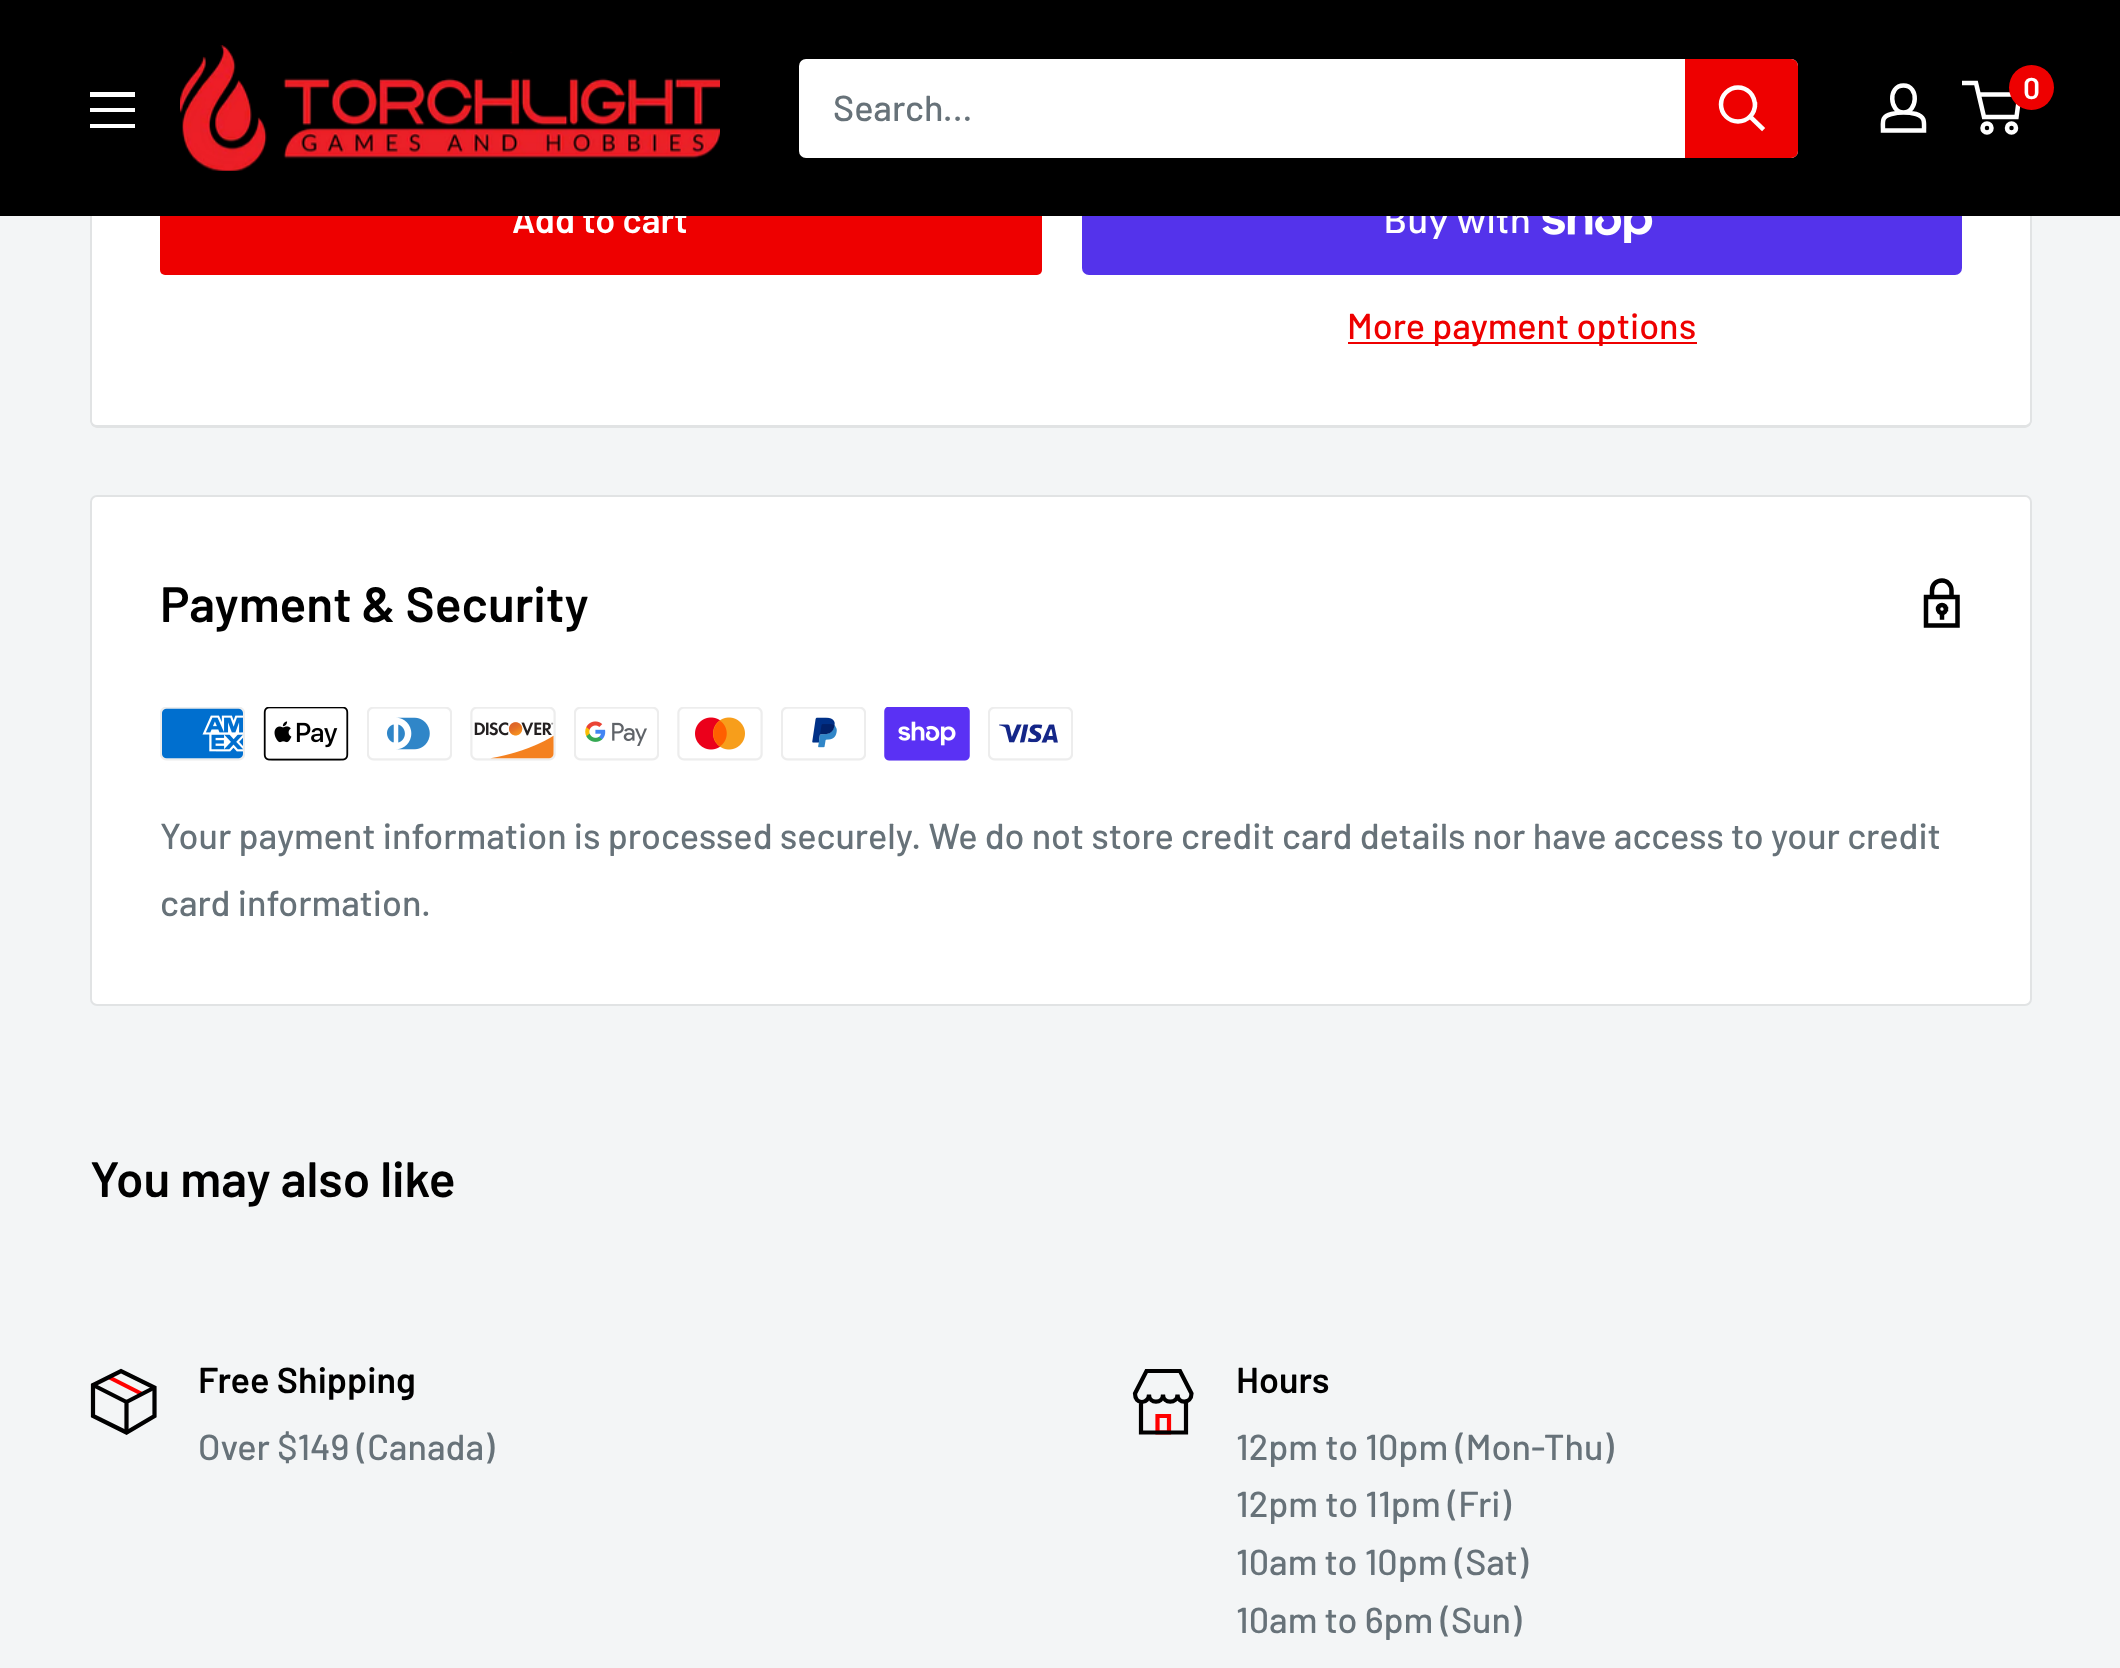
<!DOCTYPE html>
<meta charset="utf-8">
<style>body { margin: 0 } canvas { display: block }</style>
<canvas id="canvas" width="2120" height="1668"></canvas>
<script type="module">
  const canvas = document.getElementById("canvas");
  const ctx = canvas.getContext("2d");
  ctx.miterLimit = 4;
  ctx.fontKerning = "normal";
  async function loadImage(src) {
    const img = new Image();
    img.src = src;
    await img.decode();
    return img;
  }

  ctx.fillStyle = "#f3f5f6";
  ctx.fillRect(0, 0, 2120, 1668);
  ctx.fillStyle = "#ffffff";
  ctx.beginPath();
  ctx.roundRect(90, -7, 1942, 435, 7);
  ctx.fill();
  ctx.fillStyle = "#e1e3e4";
  ctx.beginPath();
  ctx.moveTo(97, -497);
  ctx.lineTo(2025, -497);
  ctx.bezierCurveTo(2029, -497, 2032, -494, 2032, -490);
  ctx.lineTo(2032, 421);
  ctx.bezierCurveTo(2032, 424, 2029, 428, 2025, 428);
  ctx.lineTo(97, 428);
  ctx.bezierCurveTo(93, 428, 90, 424, 90, 421);
  ctx.lineTo(90, -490);
  ctx.bezierCurveTo(90, -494, 93, -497, 97, -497);
  ctx.closePath();
  ctx.moveTo(97, -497);
  ctx.lineTo(2025, -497);
  ctx.bezierCurveTo(2027, -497, 2030, -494, 2030, -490);
  ctx.lineTo(2030, 421);
  ctx.bezierCurveTo(2030, 423, 2027, 425, 2025, 425);
  ctx.lineTo(97, 425);
  ctx.bezierCurveTo(94, 425, 92, 423, 92, 421);
  ctx.lineTo(92, -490);
  ctx.bezierCurveTo(92, -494, 94, -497, 97, -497);
  ctx.closePath();
  ctx.fill("evenodd");
  ctx.fillStyle = "#ee0000";
  ctx.beginPath();
  ctx.roundRect(160, 167, 882, 108, 5);
  ctx.fill();
  ctx.font = "600 36px Barlow";
  ctx.fillStyle = "#ffffff";
  ctx.fillText("Add to cart", 512, 233);
  ctx.fillStyle = "#5433eb";
  ctx.beginPath();
  ctx.roundRect(1082, 167, 880, 108, 7);
  ctx.fill();
  ctx.font = "500 36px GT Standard";
  ctx.fillStyle = "#ffffff";
  ctx.fillText("Buy with", 1383, 233);
  ctx.fillStyle = "#000000";
  ctx.fillRect(0, 0, 2120, 216);
  ctx.drawImage(await loadImage("img1.png"), 180, 45, 540, 126);
  ctx.beginPath();
  ctx.moveTo(1903.5, 112.5);
  ctx.bezierCurveTo(1907.5, 112.5, 1912, 113, 1916, 114);
  ctx.bezierCurveTo(1925.5, 117, 1924, 122, 1924, 130.5);
  ctx.lineTo(1883, 130.5);
  ctx.bezierCurveTo(1883, 121.5, 1881, 116.5, 1891.5, 114);
  ctx.bezierCurveTo(1895.5, 113, 1899.5, 112.5, 1903.5, 112.5);
  ctx.closePath();
  ctx.moveTo(1903.5, 112.5);
  ctx.bezierCurveTo(1889.5, 112.5, 1887.5, 85.5, 1903.5, 85.5);
  ctx.bezierCurveTo(1919.5, 85.5, 1917.5, 112.5, 1903.5, 112.5);
  ctx.closePath();
  ctx.strokeStyle = "#ffffff";
  ctx.lineWidth = 4.5;
  ctx.stroke();
  ctx.beginPath();
  ctx.arc(1987, 128, 4.5, 0, Math.PI * 2);
  ctx.stroke();
  ctx.beginPath();
  ctx.arc(2011.5, 128, 4.5, 0, Math.PI * 2);
  ctx.stroke();
  ctx.beginPath();
  ctx.moveTo(1978.5, 94.5);
  ctx.lineTo(2019.5, 94.5);
  ctx.lineTo(2016.5, 117);
  ctx.lineTo(1984, 117);
  ctx.lineTo(1976, 83);
  ctx.lineTo(1962, 83);
  ctx.stroke();
  ctx.fillStyle = "#ee0000";
  ctx.beginPath();
  ctx.arc(2031.5, 87.5, 22.5, 0, Math.PI * 2);
  ctx.fill();
  ctx.font = "600 30px Barlow";
  ctx.fillStyle = "#ffffff";
  ctx.fillText("0", 2023, 99);
  ctx.beginPath();
  ctx.moveTo(90, 124);
  ctx.lineTo(135, 124);
  ctx.lineTo(135, 128);
  ctx.lineTo(90, 128);
  ctx.closePath();
  ctx.moveTo(90, 92);
  ctx.lineTo(135, 92);
  ctx.lineTo(135, 97);
  ctx.lineTo(90, 97);
  ctx.closePath();
  ctx.moveTo(90, 108);
  ctx.lineTo(135, 108);
  ctx.lineTo(135, 112);
  ctx.lineTo(90, 112);
  ctx.closePath();
  ctx.fill("evenodd");
  ctx.beginPath();
  ctx.roundRect(799, 59, 999, 99, 7);
  ctx.fill();
  ctx.font = "500 36px Barlow";
  ctx.fillStyle = "#677279";
  ctx.fillText("Search...", 833, 121);
  ctx.fillStyle = "#ee0000";
  ctx.beginPath();
  ctx.roundRect(1685, 59, 113, 99, [0, 7, 7, 0]);
  ctx.fill();
  ctx.beginPath();
  ctx.moveTo(1762, 128);
  ctx.lineTo(1750.5, 117);
  ctx.lineCap = "square";
  ctx.stroke();
  ctx.beginPath();
  ctx.arc(1738, 104.5, 17, 0, Math.PI * 2);
  ctx.stroke();
  ctx.drawImage(await loadImage("img2.png"), 1542, 216, 111, 27);
  ctx.fillRect(1348, 342, 349, 2);
  ctx.fillText("More payment options", 1347, 339);
  ctx.fillStyle = "#ffffff";
  ctx.beginPath();
  ctx.roundRect(91, 496, 1940, 509, 6);
  ctx.fill();
  ctx.strokeStyle = "#e1e3e4";
  ctx.lineWidth = 2;
  ctx.stroke();
  ctx.font = "600 49.5px Barlow";
  ctx.fillStyle = "#000000";
  ctx.fillText("Payment & Security", 160, 622);
  ctx.beginPath();
  ctx.moveTo(1942, 580.5);
  ctx.bezierCurveTo(1936, 580.5, 1932, 585, 1932, 590.5);
  ctx.lineTo(1932, 597);
  ctx.lineTo(1951.5, 597);
  ctx.lineTo(1951.5, 590.5);
  ctx.bezierCurveTo(1951.5, 585, 1947.5, 580.5, 1942, 580.5);
  ctx.closePath();
  ctx.moveTo(1926, 597);
  ctx.lineTo(1957.5, 597);
  ctx.lineTo(1957.5, 625.5);
  ctx.lineTo(1926, 625.5);
  ctx.closePath();
  ctx.strokeStyle = "#000000";
  ctx.lineWidth = 4.5;
  ctx.stroke();
  ctx.beginPath();
  ctx.arc(1942, 609, 4, 0, Math.PI * 2);
  ctx.stroke();
  ctx.beginPath();
  ctx.moveTo(1942, 613.5);
  ctx.lineTo(1942, 617.5);
  ctx.stroke();
  ctx.drawImage(await loadImage("img3.png"), 160, 707, 85, 54);
  ctx.drawImage(await loadImage("img4.png"), 263, 707, 86, 54);
  ctx.drawImage(await loadImage("img5.png"), 367, 707, 85, 54);
  ctx.drawImage(await loadImage("img6.png"), 470, 707, 86, 54);
  ctx.drawImage(await loadImage("img7.png"), 574, 707, 85, 54);
  ctx.drawImage(await loadImage("img8.png"), 677, 707, 86, 54);
  ctx.drawImage(await loadImage("img9.png"), 781, 707, 85, 54);
  ctx.drawImage(await loadImage("img10.png"), 884, 707, 86, 54);
  ctx.drawImage(await loadImage("img11.png"), 988, 707, 85, 54);
  ctx.font = "500 36px Barlow";
  ctx.fillStyle = "#677279";
  ctx.fillText("Your payment information is processed securely. We do not store credit card details nor have access to your credit", 160, 849);
  ctx.fillText("card information.", 160, 916);
  ctx.font = "600 49.5px Barlow";
  ctx.fillStyle = "#000000";
  ctx.fillText("You may also like", 90, 1197);
  ctx.beginPath();
  ctx.moveTo(108.5, 1377);
  ctx.lineTo(142, 1394);
  ctx.strokeStyle = "#ff0000";
  ctx.lineWidth = 4.2;
  ctx.lineCap = "butt";
  ctx.stroke();
  ctx.beginPath();
  ctx.moveTo(154.5, 1387.5);
  ctx.lineTo(126.5, 1402);
  ctx.lineTo(93, 1385);
  ctx.moveTo(126.5, 1402);
  ctx.lineTo(126.5, 1432.5);
  ctx.strokeStyle = "#000000";
  ctx.stroke();
  ctx.beginPath();
  ctx.moveTo(154.5, 1387.5);
  ctx.lineTo(154.5, 1416);
  ctx.lineTo(126.5, 1432.5);
  ctx.lineTo(93, 1416);
  ctx.lineTo(93, 1385);
  ctx.lineTo(121, 1371);
  ctx.closePath();
  ctx.lineCap = "square";
  ctx.stroke();
  ctx.font = "600 36px Barlow";
  ctx.fillText("Free Shipping", 198, 1393);
  ctx.font = "500 36px Barlow";
  ctx.fillStyle = "#677279";
  ctx.fillText("Over $149 (Canada)", 198, 1460);
  ctx.beginPath();
  ctx.moveTo(1157.5, 1416);
  ctx.lineTo(1169, 1416);
  ctx.lineTo(1169, 1432.5);
  ctx.lineTo(1157.5, 1432.5);
  ctx.closePath();
  ctx.strokeStyle = "#ff0000";
  ctx.lineCap = "butt";
  ctx.stroke();
  ctx.beginPath();
  ctx.moveTo(1141, 1402);
  ctx.lineTo(1141, 1432.5);
  ctx.lineTo(1186, 1432.5);
  ctx.lineTo(1186, 1402);
  ctx.moveTo(1191.5, 1393.5);
  ctx.bezierCurveTo(1191.5, 1404, 1177.5, 1404.5, 1177.5, 1394.5);
  ctx.bezierCurveTo(1177.5, 1404, 1163, 1404, 1163, 1394.5);
  ctx.bezierCurveTo(1163, 1404, 1149, 1404, 1149, 1394.5);
  ctx.bezierCurveTo(1149, 1398.5, 1146, 1402, 1142, 1402);
  ctx.bezierCurveTo(1138, 1402, 1135, 1399, 1135, 1393.5);
  ctx.lineTo(1146.5, 1371);
  ctx.lineTo(1180, 1371);
  ctx.closePath();
  ctx.strokeStyle = "#000000";
  ctx.lineCap = "square";
  ctx.stroke();
  ctx.font = "600 36px Barlow";
  ctx.fillStyle = "#000000";
  ctx.fillText("Hours", 1236, 1393);
  ctx.font = "500 36px Barlow";
  ctx.fillStyle = "#677279";
  ctx.fillText("12pm to 10pm (Mon-Thu)", 1236, 1460);
  ctx.fillText("12pm to 11pm (Fri)", 1236, 1517);
  ctx.fillText("10am to 10pm (Sat)", 1236, 1575);
  ctx.fillText("10am to 6pm (Sun)", 1236, 1633);
</script>
